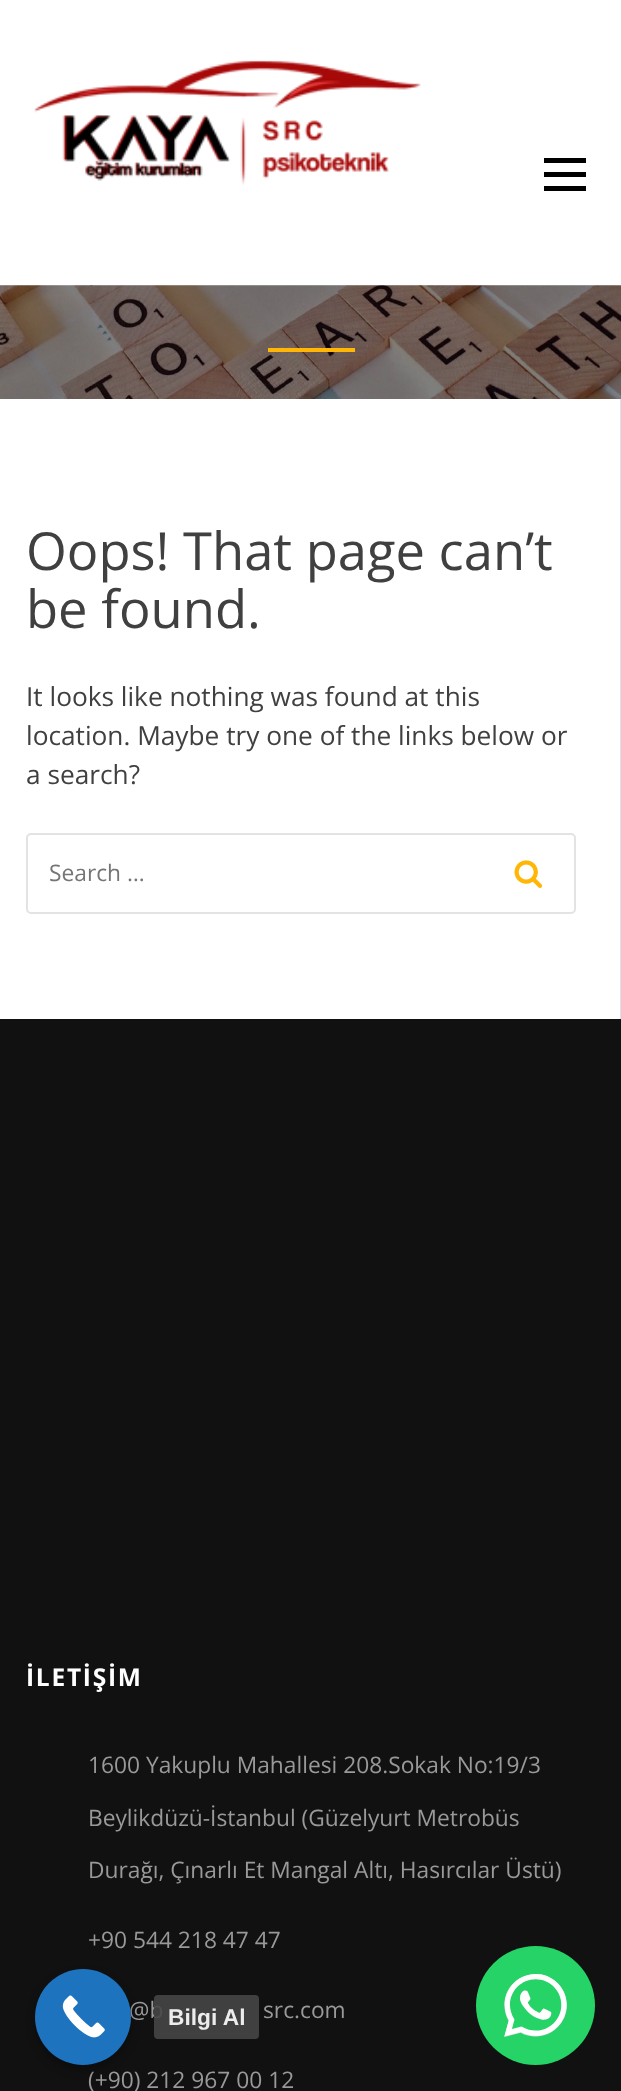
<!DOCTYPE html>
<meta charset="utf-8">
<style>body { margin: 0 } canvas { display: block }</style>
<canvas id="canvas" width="621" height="2091"></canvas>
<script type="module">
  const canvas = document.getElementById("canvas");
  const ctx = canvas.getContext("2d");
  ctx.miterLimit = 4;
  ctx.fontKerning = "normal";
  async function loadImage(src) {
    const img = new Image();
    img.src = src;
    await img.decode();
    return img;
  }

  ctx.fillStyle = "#ffffff";
  ctx.fillRect(0, 0, 621, 2091);
  ctx.save();
  ctx.beginPath();
  ctx.rect(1, 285, 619, 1);
  ctx.clip();
  ctx.fillStyle = "rgba(25, 25, 25, 0.06)";
  ctx.filter = "blur(9px)";
  ctx.beginPath();
  ctx.rect(0, 9, 621, 285);
  ctx.fill();
  ctx.filter = "none";
  ctx.restore();
  ctx.drawImage(await loadImage("img1.png"), 34, 60, 387, 125);
  ctx.fillStyle = "#000000";
  ctx.fillRect(544, 172, 42, 5);
  ctx.fillRect(544, 158, 42, 5);
  ctx.fillRect(544, 186, 42, 5);
  ctx.drawImage(await loadImage("img2.png"), 0, 285, 621, 114);
  ctx.fillStyle = "#ffb606";
  ctx.fillRect(268, 348, 87, 4);
  ctx.fillStyle = "#e1e2e4";
  ctx.fillRect(620, 399, 1, 620);
  ctx.font = "52.5px Open Sans";
  ctx.fillStyle = "#404040";
  ctx.fillText("Oops! That page can’t", 26, 570);
  ctx.fillText("be found.", 26, 628);
  ctx.font = "26.25px Open Sans";
  ctx.fillText("It looks like nothing was found at this", 26, 706);
  ctx.fillText("location. Maybe try one of the links below or", 26, 745);
  ctx.fillText("a search?", 26, 784);
  ctx.beginPath();
  ctx.roundRect(27, 834, 548, 79, 4);
  ctx.strokeStyle = "#e3e3e3";
  ctx.lineWidth = 2;
  ctx.stroke();
  ctx.font = "22.75px Open Sans";
  ctx.fillStyle = "#757575";
  ctx.fillText("Search …", 49, 881);
  ctx.drawImage(await loadImage("img3.png"), 514, 860, 29, 28);
  ctx.fillStyle = "#111111";
  ctx.fillRect(0, 1019, 621, 1072);
  ctx.letterSpacing = "1.75px";
  ctx.font = "bold 24.5px Open Sans";
  ctx.fillStyle = "#ffffff";
  ctx.fillText("İLETİŞİM", 26, 1686);
  ctx.letterSpacing = "0px";
  ctx.font = "22.75px Open Sans";
  ctx.fillStyle = "#999999";
  ctx.fillText("1600 Yakuplu Mahallesi 208.Sokak No:19/3", 88, 1773);
  ctx.fillText("Beylikdüzü-İstanbul (Güzelyurt Metrobüs", 88, 1826);
  ctx.fillText("Durağı, Çınarlı Et Mangal Altı, Hasırcılar Üstü)", 88, 1878);
  ctx.fillText("+90 544 218 47 47", 88, 1948);
  ctx.fillText("@b", 129, 2018);
  ctx.fillText("src.com", 263, 2018);
  ctx.fillText("(+90) 212 967 00 12", 88, 2088);
  ctx.fillStyle = "rgba(0, 0, 0, 0.3)";
  ctx.filter = "blur(5px)";
  ctx.beginPath();
  ctx.roundRect(35, 1974, 96, 96, 48);
  ctx.fill();
  ctx.filter = "none";
  ctx.fillStyle = "#1e73be";
  ctx.beginPath();
  ctx.arc(83, 2017, 48, 0, Math.PI * 2);
  ctx.fill();
  ctx.drawImage(await loadImage("img4.png"), 62, 1995, 43, 43);
  ctx.fillStyle = "rgba(70, 70, 70, 0.9)";
  ctx.beginPath();
  ctx.roundRect(154, 1995, 105, 44, 4);
  ctx.fill();
  ctx.font = "bold 22.75px Liberation Sans";
  ctx.fillStyle = "#ececec";
  ctx.fillText("Bilgi Al", 168, 2025);
  ctx.fillStyle = "#25d366";
  ctx.beginPath();
  ctx.arc(535.5, 2005.5, 59.5, 0, Math.PI * 2);
  ctx.fill();
  ctx.drawImage(await loadImage("img5.png"), 504, 1974, 63, 63);
</script>
